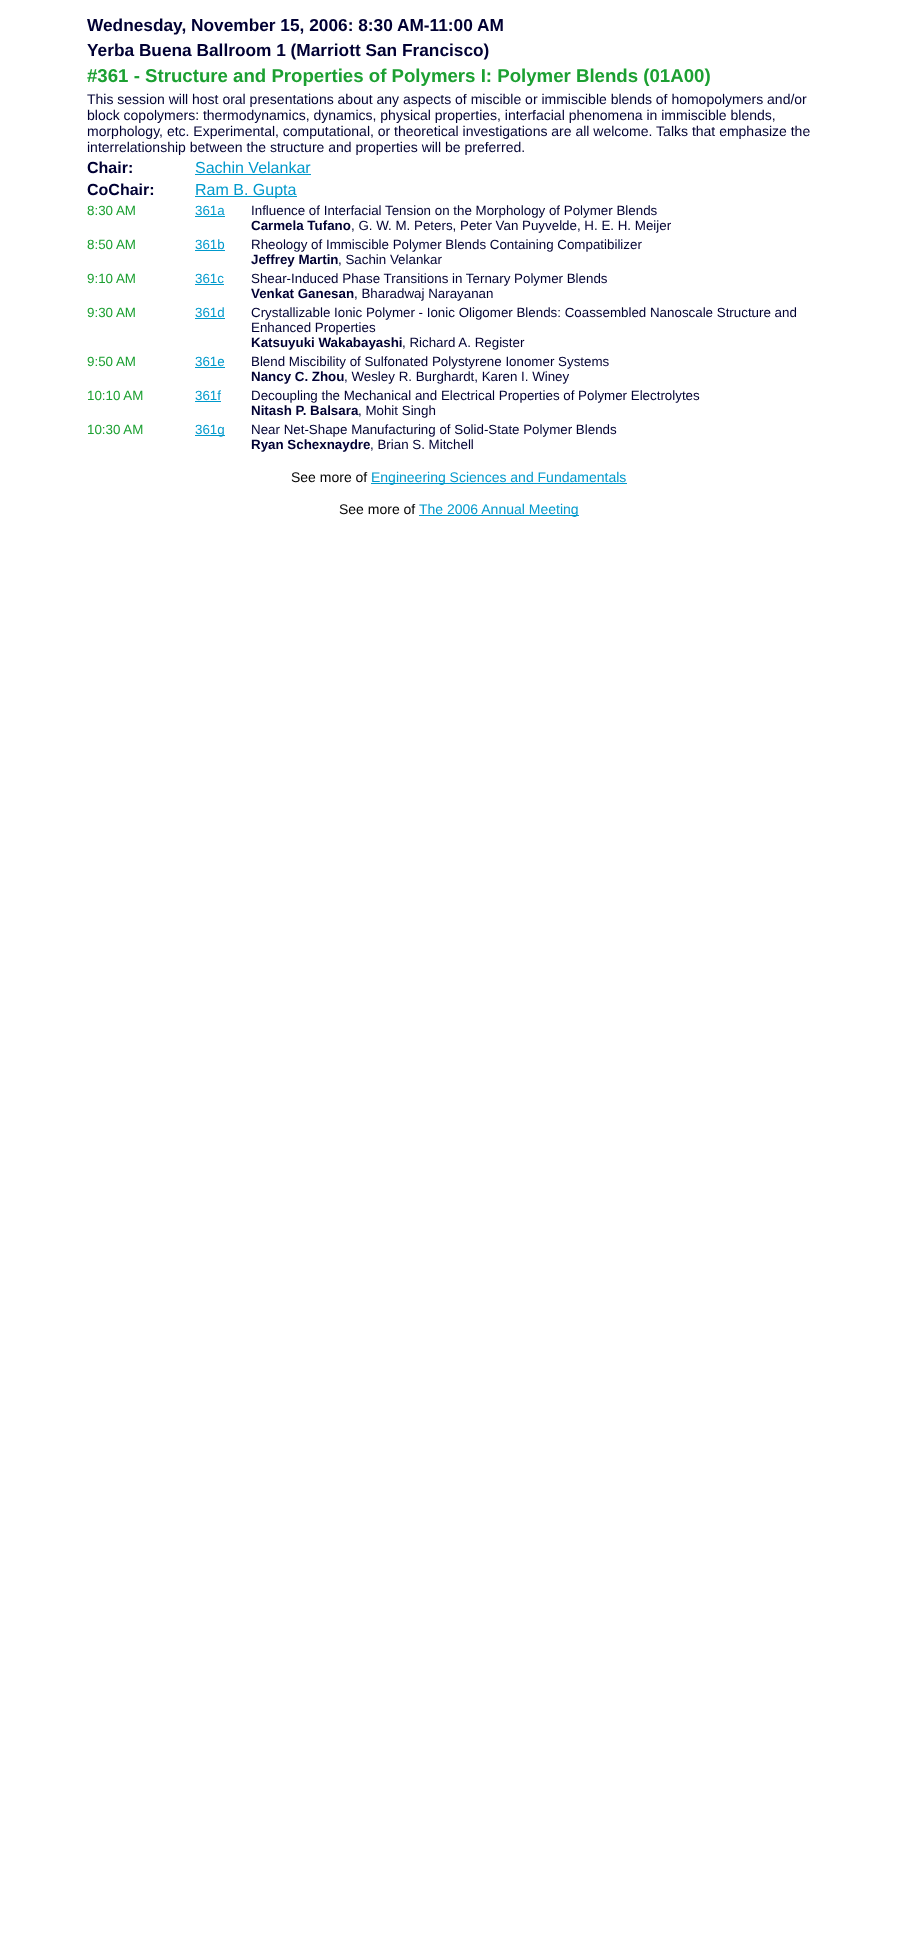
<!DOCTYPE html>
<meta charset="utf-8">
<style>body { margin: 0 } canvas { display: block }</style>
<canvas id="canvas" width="918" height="1938"></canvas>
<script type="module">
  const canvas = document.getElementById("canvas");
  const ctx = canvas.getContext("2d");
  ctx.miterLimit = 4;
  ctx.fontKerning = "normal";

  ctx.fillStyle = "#ffffff";
  ctx.fillRect(0, 0, 918, 1938);
  ctx.font = "bold 17.3px Liberation Sans";
  ctx.fillStyle = "#000033";
  ctx.fillText("Wednesday, November 15, 2006: 8:30 AM-11:00 AM", 87, 31);
  ctx.fillText("Yerba Buena Ballroom 1 (Marriott San Francisco)", 87, 56);
  ctx.font = "bold 18.65px Liberation Sans";
  ctx.fillStyle = "#1ca032";
  ctx.fillText("#361 - Structure and Properties of Polymers I: Polymer Blends (01A00)", 87, 82);
  ctx.font = "14px Liberation Sans";
  ctx.fillStyle = "#000033";
  ctx.fillText("This session will host oral presentations about any aspects of miscible or immiscible blends of homopolymers and/or", 87, 104);
  ctx.fillText("block copolymers: thermodynamics, dynamics, physical properties, interfacial phenomena in immiscible blends,", 87, 120);
  ctx.fillText("morphology, etc. Experimental, computational, or theoretical investigations are all welcome. Talks that emphasize the", 87, 136);
  ctx.fillText("interrelationship between the structure and properties will be preferred.", 87, 152);
  ctx.font = "bold 16px Liberation Sans";
  ctx.fillText("Chair:", 87, 173);
  ctx.font = "16px Liberation Sans";
  ctx.fillStyle = "#0099cc";
  ctx.fillText("Sachin Velankar", 195, 173);
  ctx.fillRect(195, 174, 116, 1);
  ctx.font = "bold 16px Liberation Sans";
  ctx.fillStyle = "#000033";
  ctx.fillText("CoChair:", 87, 195);
  ctx.fillStyle = "#0099cc";
  ctx.fillRect(195, 196, 102, 1);
  ctx.font = "16px Liberation Sans";
  ctx.fillText("Ram B. Gupta", 195, 195);
  ctx.font = "13.35px Liberation Sans";
  ctx.fillStyle = "#1ca032";
  ctx.fillText("8:30 AM", 87, 215);
  ctx.fillStyle = "#0099cc";
  ctx.fillText("361a", 195, 215);
  ctx.fillRect(195, 216, 30, 1);
  ctx.fillStyle = "#000033";
  ctx.fillText("Influence of Interfacial Tension on the Morphology of Polymer Blends", 251, 215);
  ctx.font = "bold 13.35px Liberation Sans";
  ctx.fillText("Carmela Tufano", 251, 230);
  ctx.font = "13.35px Liberation Sans";
  ctx.fillText(", G. W. M. Peters, Peter Van Puyvelde, H. E. H. Meijer", 351, 230);
  ctx.fillStyle = "#1ca032";
  ctx.fillText("8:50 AM", 87, 249);
  ctx.fillStyle = "#0099cc";
  ctx.fillText("361b", 195, 249);
  ctx.fillRect(195, 250, 30, 1);
  ctx.fillStyle = "#000033";
  ctx.fillText("Rheology of Immiscible Polymer Blends Containing Compatibilizer", 251, 249);
  ctx.font = "bold 13.35px Liberation Sans";
  ctx.fillText("Jeffrey Martin", 251, 264);
  ctx.font = "13.35px Liberation Sans";
  ctx.fillText(", Sachin Velankar", 338, 264);
  ctx.fillStyle = "#1ca032";
  ctx.fillText("9:10 AM", 87, 283);
  ctx.fillStyle = "#0099cc";
  ctx.fillText("361c", 195, 283);
  ctx.fillRect(195, 284, 29, 1);
  ctx.fillStyle = "#000033";
  ctx.fillText("Shear-Induced Phase Transitions in Ternary Polymer Blends", 251, 283);
  ctx.font = "bold 13.35px Liberation Sans";
  ctx.fillText("Venkat Ganesan", 251, 298);
  ctx.font = "13.35px Liberation Sans";
  ctx.fillText(", Bharadwaj Narayanan", 354, 298);
  ctx.fillStyle = "#1ca032";
  ctx.fillText("9:30 AM", 87, 317);
  ctx.fillStyle = "#0099cc";
  ctx.fillText("361d", 195, 317);
  ctx.fillRect(195, 318, 30, 1);
  ctx.fillStyle = "#000033";
  ctx.fillText("Crystallizable Ionic Polymer - Ionic Oligomer Blends: Coassembled Nanoscale Structure and", 251, 317);
  ctx.fillText("Enhanced Properties", 251, 332);
  ctx.font = "bold 13.35px Liberation Sans";
  ctx.fillText("Katsuyuki Wakabayashi", 251, 347);
  ctx.font = "13.35px Liberation Sans";
  ctx.fillText(", Richard A. Register", 402, 347);
  ctx.fillStyle = "#1ca032";
  ctx.fillText("9:50 AM", 87, 366);
  ctx.fillStyle = "#0099cc";
  ctx.fillText("361e", 195, 366);
  ctx.fillRect(195, 367, 30, 1);
  ctx.fillStyle = "#000033";
  ctx.fillText("Blend Miscibility of Sulfonated Polystyrene Ionomer Systems", 251, 366);
  ctx.font = "bold 13.35px Liberation Sans";
  ctx.fillText("Nancy C. Zhou", 251, 381);
  ctx.font = "13.35px Liberation Sans";
  ctx.fillText(", Wesley R. Burghardt, Karen I. Winey", 344, 381);
  ctx.fillStyle = "#1ca032";
  ctx.fillText("10:10 AM", 87, 400);
  ctx.fillStyle = "#0099cc";
  ctx.fillText("361f", 195, 400);
  ctx.fillRect(195, 401, 26, 1);
  ctx.fillStyle = "#000033";
  ctx.fillText("Decoupling the Mechanical and Electrical Properties of Polymer Electrolytes", 251, 400);
  ctx.font = "bold 13.35px Liberation Sans";
  ctx.fillText("Nitash P. Balsara", 251, 415);
  ctx.font = "13.35px Liberation Sans";
  ctx.fillText(", Mohit Singh", 358, 415);
  ctx.fillStyle = "#1ca032";
  ctx.fillText("10:30 AM", 87, 434);
  ctx.fillStyle = "#0099cc";
  ctx.fillRect(195, 435, 30, 1);
  ctx.fillText("361g", 195, 434);
  ctx.fillStyle = "#000033";
  ctx.fillText("Near Net-Shape Manufacturing of Solid-State Polymer Blends", 251, 434);
  ctx.font = "bold 13.35px Liberation Sans";
  ctx.fillText("Ryan Schexnaydre", 251, 449);
  ctx.font = "13.35px Liberation Sans";
  ctx.fillText(", Brian S. Mitchell", 370, 449);
  ctx.font = "14px Liberation Sans";
  ctx.fillStyle = "#000000";
  ctx.fillText("See more of", 291, 482);
  ctx.fillStyle = "#0099cc";
  ctx.fillRect(371, 483, 256, 1);
  ctx.fillText("Engineering Sciences and Fundamentals", 371, 482);
  ctx.fillStyle = "#000000";
  ctx.fillText("See more of", 339, 514);
  ctx.fillStyle = "#0099cc";
  ctx.fillRect(419, 515, 160, 1);
  ctx.fillText("The 2006 Annual Meeting", 419, 514);
</script>
